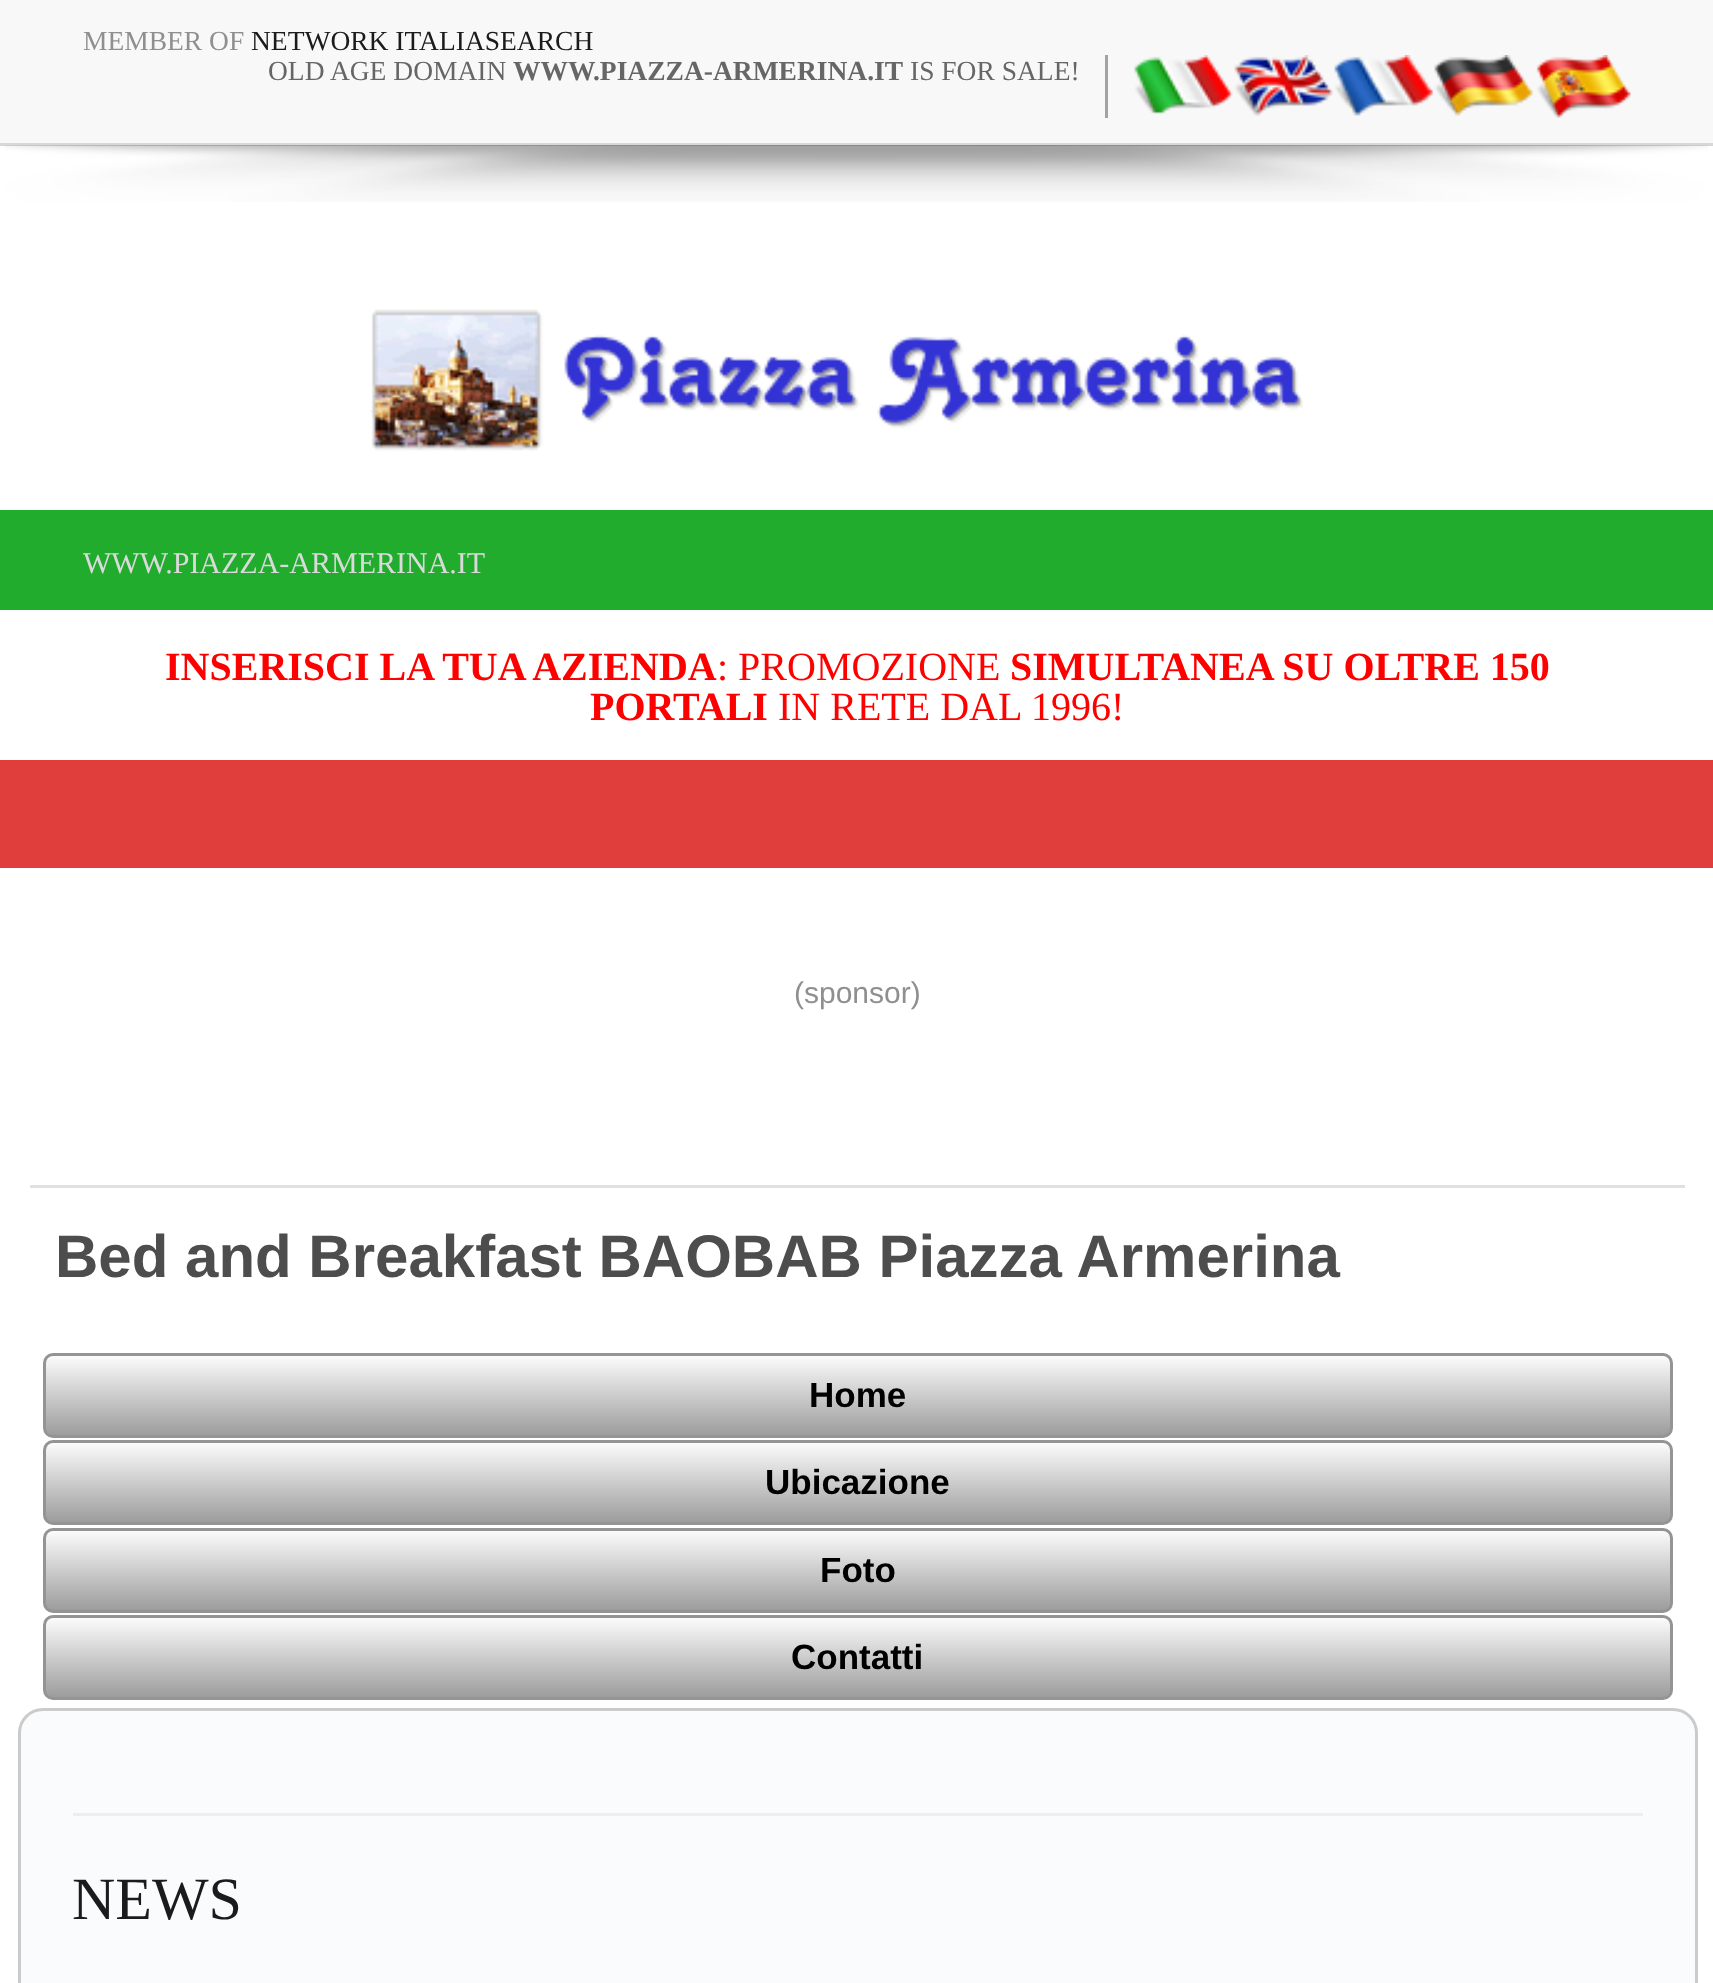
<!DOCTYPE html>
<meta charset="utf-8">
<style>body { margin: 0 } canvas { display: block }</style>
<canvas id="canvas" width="1713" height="1983"></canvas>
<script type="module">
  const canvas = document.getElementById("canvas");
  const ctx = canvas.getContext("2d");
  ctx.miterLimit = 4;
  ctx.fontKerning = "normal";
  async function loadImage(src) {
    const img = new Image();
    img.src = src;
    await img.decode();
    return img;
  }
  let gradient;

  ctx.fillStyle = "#ffffff";
  ctx.fillRect(0, 0, 1713, 1983);
  ctx.fillStyle = "#f8f8f8";
  ctx.fillRect(0, 0, 1713, 143);
  ctx.fillStyle = "#d8d8d8";
  ctx.fillRect(0, 143, 1713, 3);
  ctx.font = "27.5px Liberation Serif";
  ctx.fillStyle = "#8f8f8f";
  ctx.fillText("MEMBER OF", 83, 50);
  ctx.fillStyle = "#1b1b1b";
  ctx.fillText("NETWORK ITALIASEARCH", 251, 50);
  ctx.fillStyle = "#666666";
  ctx.fillText("OLD AGE DOMAIN", 268, 80);
  ctx.font = "bold 27.5px Liberation Serif";
  ctx.fillText("WWW.PIAZZA-ARMERINA.IT", 513, 80);
  ctx.font = "27.5px Liberation Serif";
  ctx.fillText("IS FOR SALE!", 910, 80);
  ctx.fillStyle = "#a3a3a3";
  ctx.fillRect(1105, 55, 3, 63);
  ctx.drawImage(await loadImage("img1.png"), 1134, 55, 99, 59);
  ctx.drawImage(await loadImage("img2.png"), 1234, 55, 99, 61);
  ctx.drawImage(await loadImage("img3.png"), 1334, 55, 99, 61);
  ctx.drawImage(await loadImage("img4.png"), 1434, 55, 99, 61);
  ctx.drawImage(await loadImage("img5.png"), 1536, 55, 95, 63);
  ctx.drawImage(await loadImage("img6.png"), 4, 145, 1704, 57);
  ctx.drawImage(await loadImage("img7.png"), 370, 309, 933, 142);
  ctx.fillStyle = "#21ac2d";
  ctx.fillRect(0, 510, 1713, 100);
  ctx.font = "30px Liberation Serif";
  ctx.fillStyle = "#dadada";
  ctx.fillText("WWW.PIAZZA-ARMERINA.IT", 83, 573);
  ctx.font = "bold 40px Liberation Serif";
  ctx.fillStyle = "#ff0000";
  ctx.fillText("INSERISCI LA TUA AZIENDA", 165, 680);
  ctx.font = "40px Liberation Serif";
  ctx.fillText(": PROMOZIONE", 717, 680);
  ctx.font = "bold 40px Liberation Serif";
  ctx.fillText("SIMULTANEA SU OLTRE 150", 1010, 680);
  ctx.fillText("PORTALI", 590, 720);
  ctx.font = "40px Liberation Serif";
  ctx.fillText("IN RETE DAL 1996!", 778, 720);
  ctx.fillStyle = "#e03d3d";
  ctx.fillRect(0, 760, 1713, 108);
  ctx.font = "30px Liberation Sans";
  ctx.fillStyle = "#8f8f8f";
  ctx.fillText("(sponsor)", 794, 1003);
  ctx.fillStyle = "#e0e0e0";
  ctx.fillRect(30, 1185, 1655, 3);
  ctx.font = "bold 60px Liberation Sans";
  ctx.fillStyle = "#4d4d4d";
  ctx.fillText("Bed and Breakfast BAOBAB Piazza Armerina", 55, 1277);
  gradient = ctx.createLinearGradient(858, 1353, 858, 1438);
  gradient.addColorStop(0, "#ffffff");
  gradient.addColorStop(1, "#999999");
  ctx.fillStyle = gradient;
  ctx.beginPath();
  ctx.roundRect(44.5, 1354.5, 1627, 82, 8.5);
  ctx.fill();
  ctx.strokeStyle = "#949494";
  ctx.lineWidth = 3;
  ctx.stroke();
  ctx.font = "bold 35px Liberation Sans";
  ctx.fillStyle = "#000000";
  ctx.fillText("Home", 809, 1407);
  gradient = ctx.createLinearGradient(858, 1440, 858, 1525);
  gradient.addColorStop(0, "#ffffff");
  gradient.addColorStop(1, "#999999");
  ctx.fillStyle = gradient;
  ctx.beginPath();
  ctx.roundRect(44.5, 1441.5, 1627, 82, 8.5);
  ctx.fill();
  ctx.stroke();
  ctx.fillStyle = "#000000";
  ctx.fillText("Ubicazione", 765, 1494);
  gradient = ctx.createLinearGradient(858, 1528, 858, 1613);
  gradient.addColorStop(0, "#ffffff");
  gradient.addColorStop(1, "#999999");
  ctx.fillStyle = gradient;
  ctx.beginPath();
  ctx.roundRect(44.5, 1529.5, 1627, 82, 8.5);
  ctx.fill();
  ctx.stroke();
  ctx.fillStyle = "#000000";
  ctx.fillText("Foto", 820, 1582);
  gradient = ctx.createLinearGradient(858, 1615, 858, 1700);
  gradient.addColorStop(0, "#ffffff");
  gradient.addColorStop(1, "#999999");
  ctx.fillStyle = gradient;
  ctx.beginPath();
  ctx.roundRect(44.5, 1616.5, 1627, 82, 8.5);
  ctx.fill();
  ctx.stroke();
  ctx.fillStyle = "#000000";
  ctx.fillText("Contatti", 791, 1669);
  ctx.fillStyle = "#fafbfc";
  ctx.beginPath();
  ctx.roundRect(19.5, 1709.5, 1677, 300, 23.5);
  ctx.fill();
  ctx.strokeStyle = "#cbcbcb";
  ctx.stroke();
  ctx.fillStyle = "#eeeeee";
  ctx.fillRect(73, 1813, 1570, 3);
  ctx.font = "60px Liberation Serif";
  ctx.fillStyle = "#1b1b1b";
  ctx.fillText("NEWS", 72, 1919);
</script>
